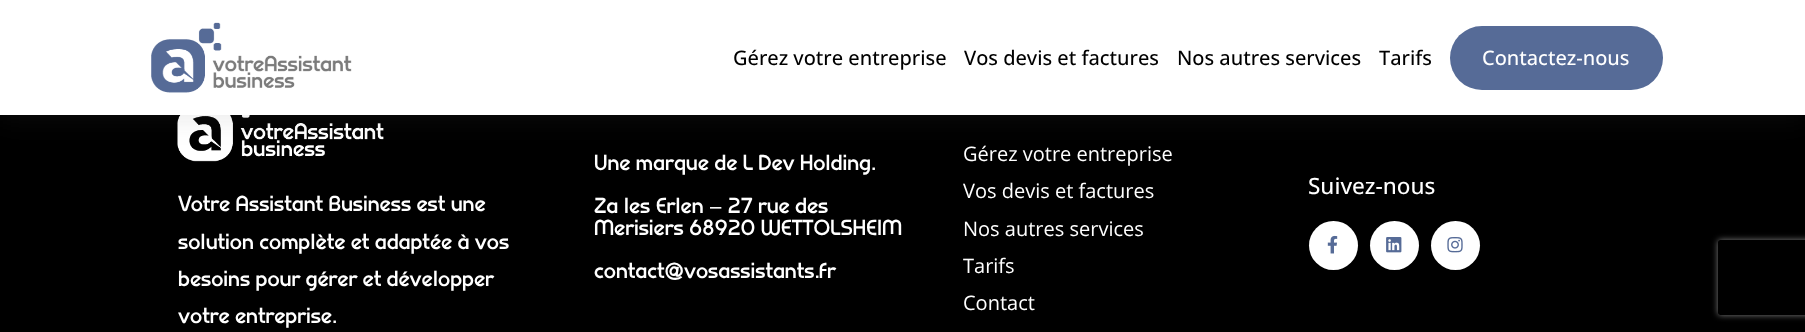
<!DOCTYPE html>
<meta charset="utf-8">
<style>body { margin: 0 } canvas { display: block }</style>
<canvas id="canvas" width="1805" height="332"></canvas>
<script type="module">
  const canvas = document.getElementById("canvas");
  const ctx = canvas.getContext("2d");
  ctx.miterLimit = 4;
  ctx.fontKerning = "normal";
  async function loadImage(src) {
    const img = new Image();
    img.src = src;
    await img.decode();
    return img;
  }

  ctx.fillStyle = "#000000";
  ctx.fillRect(0, 0, 1805, 332);
  ctx.drawImage(await loadImage("img5.png"), 177, 115, 207, 47);
  ctx.fillStyle = "rgba(86, 86, 86, 0.11)";
  ctx.filter = "blur(12.5px)";
  ctx.beginPath();
  ctx.rect(0, 6, 1805, 115);
  ctx.fill();
  ctx.filter = "none";
  ctx.fillStyle = "#ffffff";
  ctx.fillRect(0, 0, 1805, 115);
  ctx.drawImage(await loadImage("img1.png"), 151, 22, 201, 71);
  ctx.font = "500 20px Open Sans";
  ctx.fillStyle = "#000000";
  ctx.fillText("Gérez votre entreprise", 733, 65);
  ctx.fillText("Vos devis et factures", 964, 65);
  ctx.fillText("Nos autres services", 1177, 65);
  ctx.fillText("Tarifs", 1379, 65);
  ctx.fillStyle = "#566b97";
  ctx.beginPath();
  ctx.roundRect(1450, 26, 213, 64, 32);
  ctx.fill();
  ctx.fillStyle = "#ffffff";
  ctx.fillText("Contactez-nous", 1482, 65);
  ctx.font = "bold 20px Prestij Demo";
  ctx.fillText("Une marque de L Dev Holding.", 594, 170);
  ctx.fillText("Za les Erlen – 27 rue des", 594, 213);
  ctx.fillText("Merisiers 68920 WETTOLSHEIM", 594, 235);
  ctx.fillText("contact@vosassistants.fr", 594, 278);
  ctx.font = "20px Open Sans";
  ctx.fillText("Gérez votre entreprise", 963, 161);
  ctx.fillText("Vos devis et factures", 963, 198);
  ctx.fillText("Nos autres services", 963, 236);
  ctx.fillText("Tarifs", 963, 273);
  ctx.fillText("Contact", 963, 310);
  ctx.font = "500 22.5px Open Sans";
  ctx.fillText("Suivez-nous", 1308, 194);
  ctx.beginPath();
  ctx.arc(1333.5, 245.5, 24.5, 0, Math.PI * 2);
  ctx.fill();
  ctx.drawImage(await loadImage("img2.png"), 1327, 235, 11, 19);
  ctx.beginPath();
  ctx.arc(1394.5, 245.5, 24.5, 0, Math.PI * 2);
  ctx.fill();
  ctx.drawImage(await loadImage("img3.png"), 1386, 237, 16, 16);
  ctx.beginPath();
  ctx.arc(1455.5, 245.5, 24.5, 0, Math.PI * 2);
  ctx.fill();
  ctx.drawImage(await loadImage("img4.png"), 1447, 237, 16, 16);
  ctx.font = "bold 20px Prestij Demo";
  ctx.fillText("Votre Assistant Business est une", 178, 211);
  ctx.fillText("solution complète et adaptée à vos", 178, 249);
  ctx.fillText("besoins pour gérer et développer", 178, 286);
  ctx.fillText("votre entreprise.", 178, 323);
  ctx.save();
  ctx.beginPath();
  ctx.moveTo(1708, 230);
  ctx.lineTo(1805, 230);
  ctx.lineTo(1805, 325);
  ctx.lineTo(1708, 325);
  ctx.closePath();
  ctx.moveTo(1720.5, 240);
  ctx.lineTo(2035.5, 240);
  ctx.bezierCurveTo(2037, 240, 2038, 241, 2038, 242.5);
  ctx.lineTo(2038, 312.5);
  ctx.bezierCurveTo(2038, 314, 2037, 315, 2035.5, 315);
  ctx.lineTo(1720.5, 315);
  ctx.bezierCurveTo(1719, 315, 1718, 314, 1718, 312.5);
  ctx.lineTo(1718, 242.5);
  ctx.bezierCurveTo(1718, 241, 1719, 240, 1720.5, 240);
  ctx.closePath();
  ctx.clip("evenodd");
  ctx.fillStyle = "#808080";
  ctx.filter = "blur(3px)";
  ctx.beginPath();
  ctx.roundRect(1718, 240, 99, 75, 2.5);
  ctx.fill();
  ctx.filter = "none";
  ctx.restore();
</script>
